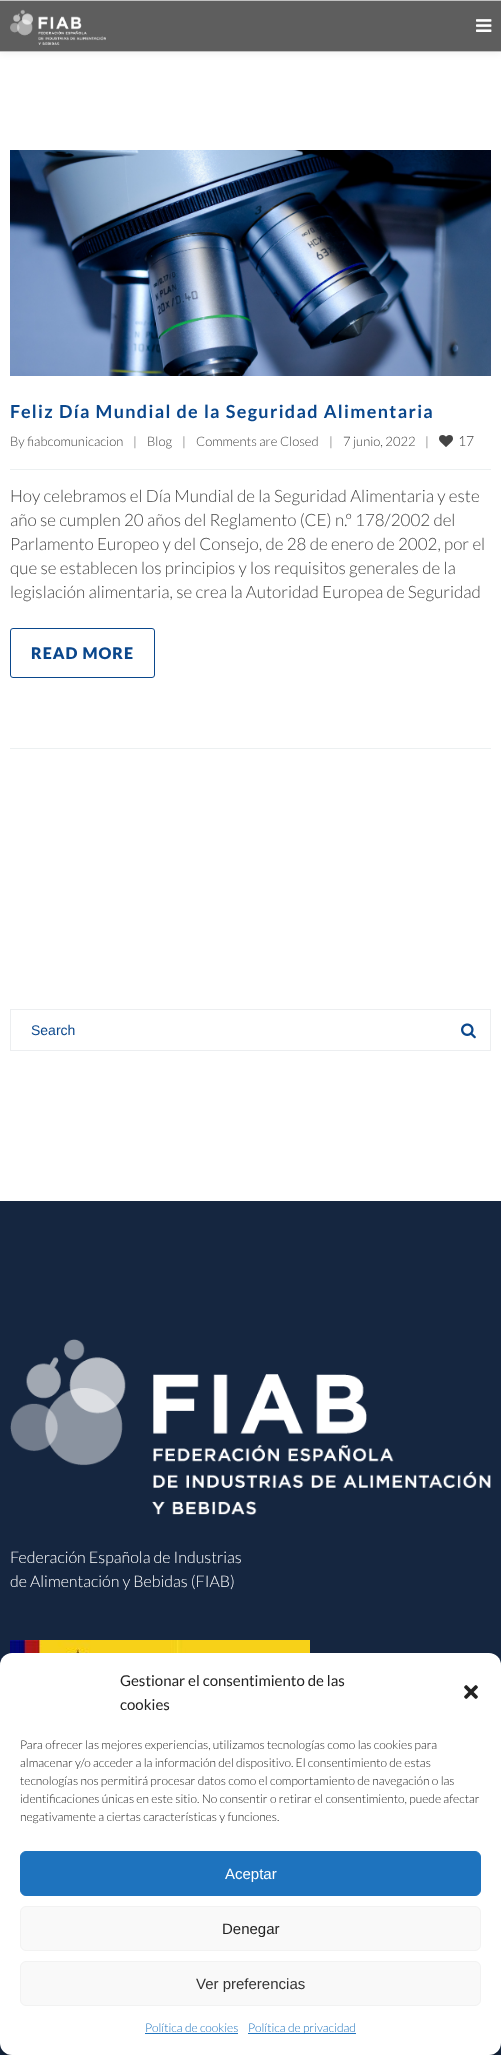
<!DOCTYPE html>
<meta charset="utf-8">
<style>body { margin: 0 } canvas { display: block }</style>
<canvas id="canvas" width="501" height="2055"></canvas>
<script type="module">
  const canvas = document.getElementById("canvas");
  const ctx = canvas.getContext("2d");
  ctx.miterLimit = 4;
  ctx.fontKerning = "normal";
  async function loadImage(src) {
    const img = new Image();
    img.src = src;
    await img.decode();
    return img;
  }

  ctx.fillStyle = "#ffffff";
  ctx.fillRect(0, 0, 501, 2055);
  ctx.fillStyle = "rgba(0, 0, 0, 0.05)";
  ctx.filter = "blur(3px)";
  ctx.beginPath();
  ctx.rect(0, 2, 501, 52);
  ctx.fill();
  ctx.filter = "none";
  ctx.fillStyle = "#5e5e5e";
  ctx.fillRect(0, 1, 501, 50);
  ctx.fillStyle = "#c1c1c1";
  ctx.fillRect(0, 0, 501, 1);
  ctx.fillRect(0, 51, 501, 1);
  ctx.drawImage(await loadImage("img1.png"), 10, 9, 96, 36);
  ctx.drawImage(await loadImage("img2.png"), 476, 19, 16, 13);
  ctx.drawImage(await loadImage("img3.png"), 10, 150, 481, 226);
  ctx.letterSpacing = "1.35px";
  ctx.font = "bold 18px Lato";
  ctx.fillStyle = "#0a478c";
  ctx.fillText("Feliz Día Mundial de la Seguridad Alimentaria", 10, 418);
  ctx.fillStyle = "#ecf0f1";
  ctx.fillRect(10, 469, 481, 1);
  ctx.letterSpacing = "0px";
  ctx.font = "300 13px Lato";
  ctx.fillStyle = "#444444";
  ctx.fillText("By fiabcomunicacion", 10, 446);
  ctx.fillText("|", 133, 446);
  ctx.fillText("Blog", 147, 446);
  ctx.fillText("|", 182, 446);
  ctx.fillText("Comments are Closed", 196, 446);
  ctx.fillText("|", 329, 446);
  ctx.fillText("7 junio, 2022", 343, 446);
  ctx.fillText("|", 425, 446);
  ctx.drawImage(await loadImage("img4.png"), 439, 435, 14, 12);
  ctx.font = "300 14px Lato";
  ctx.fillText("17", 458, 446);
  ctx.font = "300 17px Lato";
  ctx.fillText("Hoy celebramos el Día Mundial de la Seguridad Alimentaria y este", 10, 502);
  ctx.fillText("año se cumplen 20 años del Reglamento (CE) n.º 178/2002 del", 10, 526);
  ctx.fillText("Parlamento Europeo y del Consejo, de 28 de enero de 2002, por el", 10, 550);
  ctx.fillText("que se establecen los principios y los requisitos generales de la", 10, 574);
  ctx.fillText("legislación alimentaria, se crea la Autoridad Europea de Seguridad", 10, 598);
  ctx.beginPath();
  ctx.roundRect(10.5, 628.5, 144, 49, 2.5);
  ctx.strokeStyle = "#0a478c";
  ctx.stroke();
  ctx.letterSpacing = "1px";
  ctx.font = "900 16px Lato";
  ctx.fillStyle = "#0a478c";
  ctx.fillText("READ MORE", 31, 659);
  ctx.fillStyle = "#ecf0f1";
  ctx.fillRect(10, 748, 481, 1);
  ctx.strokeStyle = "#eceef0";
  ctx.strokeRect(10.5, 1009.5, 480, 41);
  ctx.letterSpacing = "0px";
  ctx.font = "14px Liberation Sans";
  ctx.fillStyle = "#0a478c";
  ctx.fillText("Search", 31, 1035);
  ctx.drawImage(await loadImage("img5.png"), 461, 1023, 15, 16);
  ctx.fillStyle = "#152640";
  ctx.fillRect(0, 1201, 501, 854);
  ctx.drawImage(await loadImage("img6.png"), 10, 1339, 481, 176);
  ctx.font = "300 16px Lato";
  ctx.fillStyle = "#ffffff";
  ctx.fillText("Federación Española de Industrias", 10, 1563);
  ctx.fillText("de Alimentación y Bebidas (FIAB)", 10, 1587);
  ctx.drawImage(await loadImage("img7.png"), 10, 1640, 300, 14);
  ctx.fillStyle = "rgba(0, 0, 0, 0.23)";
  ctx.filter = "blur(3px)";
  ctx.beginPath();
  ctx.roundRect(0, 1659, 501, 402, 12);
  ctx.fill();
  ctx.filter = "none";
  ctx.fillStyle = "#ffffff";
  ctx.beginPath();
  ctx.roundRect(0, 1653, 501, 402, 12);
  ctx.fill();
  ctx.font = "15px Lato";
  ctx.fillStyle = "#222222";
  ctx.fillText("Gestionar el consentimiento de las", 120, 1686);
  ctx.fillText("cookies", 120, 1710);
  ctx.drawImage(await loadImage("img8.png"), 464, 1685, 14, 14);
  ctx.font = "300 12px Lato";
  ctx.fillText("Para ofrecer las mejores experiencias, utilizamos tecnologías como las cookies para", 20, 1749);
  ctx.fillText("almacenar y/o acceder a la información del dispositivo. El consentimiento de estas", 20, 1767);
  ctx.fillText("tecnologías nos permitirá procesar datos como el comportamiento de navegación o las", 20, 1785);
  ctx.fillText("identificaciones únicas en este sitio. No consentir o retirar el consentimiento, puede afectar", 20, 1803);
  ctx.fillText("negativamente a ciertas características y funciones.", 20, 1821);
  ctx.fillStyle = "#1e73be";
  ctx.beginPath();
  ctx.roundRect(20.5, 1851.5, 460, 44, 5.5);
  ctx.fill();
  ctx.strokeStyle = "#1e73be";
  ctx.stroke();
  ctx.font = "15px Liberation Sans";
  ctx.fillStyle = "#ffffff";
  ctx.fillText("Aceptar", 225, 1879);
  ctx.fillStyle = "#f9f9f9";
  ctx.beginPath();
  ctx.roundRect(20.5, 1906.5, 460, 44, 5.5);
  ctx.fill();
  ctx.strokeStyle = "#f2f2f2";
  ctx.stroke();
  ctx.fillStyle = "#222222";
  ctx.fillText("Denegar", 222, 1934);
  ctx.fillStyle = "#f9f9f9";
  ctx.beginPath();
  ctx.roundRect(20.5, 1961.5, 460, 44, 5.5);
  ctx.fill();
  ctx.stroke();
  ctx.fillStyle = "#333333";
  ctx.fillText("Ver preferencias", 196, 1989);
  ctx.font = "300 12px Lato";
  ctx.fillStyle = "#1e73be";
  ctx.fillText("Política de cookies", 145, 2032);
  ctx.fillRect(145, 2033, 93, 1);
  ctx.fillRect(248, 2033, 108, 1);
  ctx.fillText("Política de privacidad", 248, 2032);
</script>
